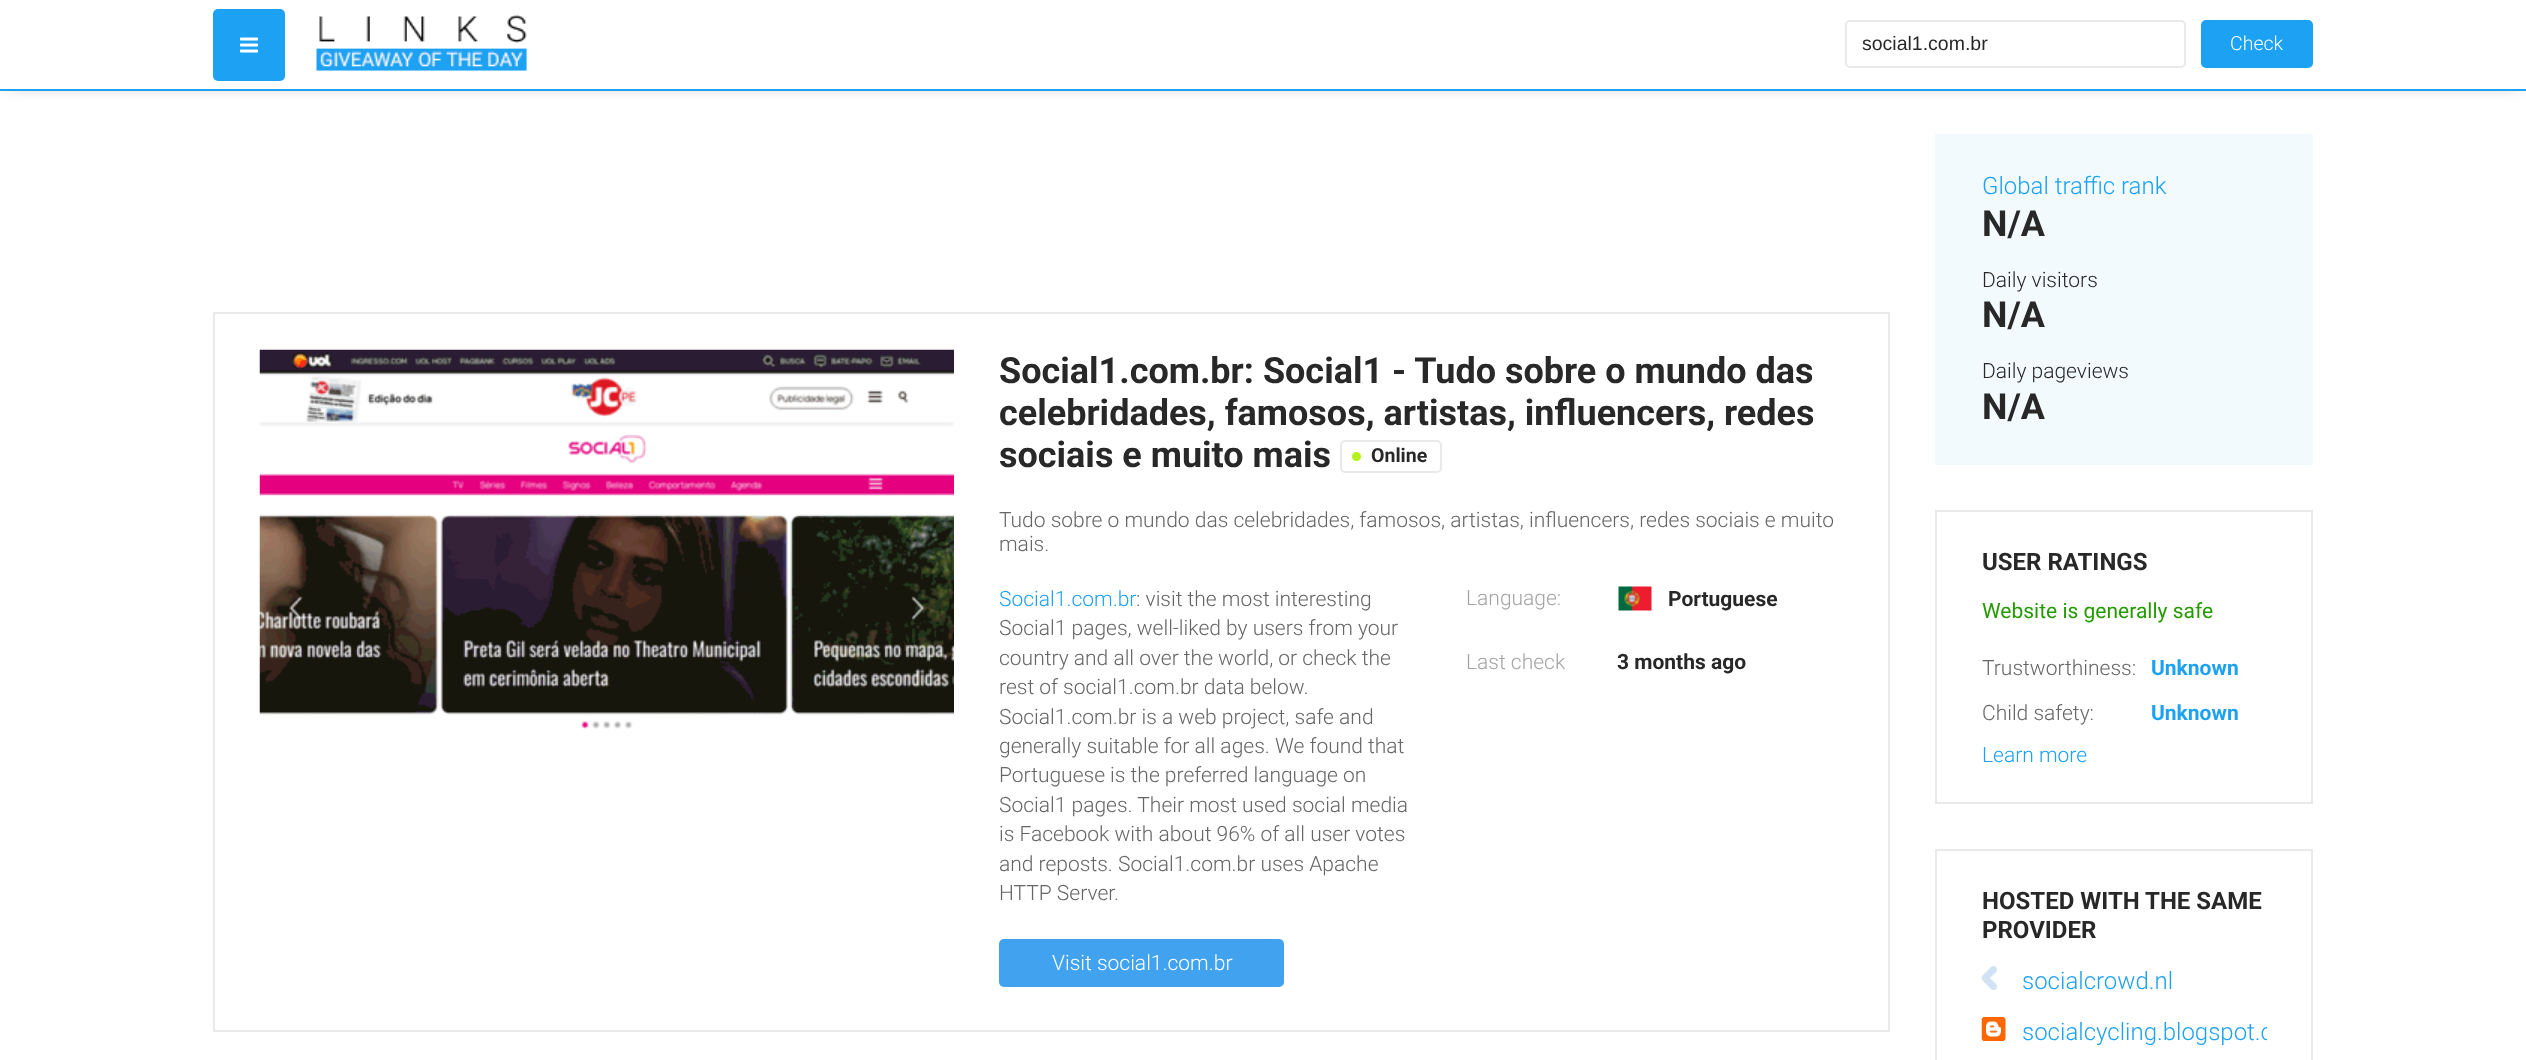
<!DOCTYPE html>
<meta charset="utf-8">
<style>body { margin: 0 } canvas { display: block }</style>
<canvas id="canvas" width="2526" height="1060"></canvas>
<script type="module">
  const canvas = document.getElementById("canvas");
  const ctx = canvas.getContext("2d");
  ctx.miterLimit = 4;
  ctx.fontKerning = "normal";
  async function loadImage(src) {
    const img = new Image();
    img.src = src;
    await img.decode();
    return img;
  }

  ctx.fillStyle = "#ffffff";
  ctx.fillRect(0, 0, 2526, 1060);
  ctx.save();
  ctx.beginPath();
  ctx.rect(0, 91, 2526, 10);
  ctx.clip();
  ctx.fillStyle = "#999999";
  ctx.filter = "blur(9px)";
  ctx.beginPath();
  ctx.rect(8, 8, 2511, 75);
  ctx.fill();
  ctx.filter = "none";
  ctx.restore();
  ctx.fillStyle = "#1da1f2";
  ctx.fillRect(0, 89, 2526, 2);
  ctx.beginPath();
  ctx.roundRect(213, 9, 72, 72, 5);
  ctx.fill();
  ctx.drawImage(await loadImage("img1.png"), 240, 37, 18, 16);
  ctx.drawImage(await loadImage("img2.png"), 316, 14, 211, 57);
  ctx.beginPath();
  ctx.roundRect(1846, 21, 339, 46, 4);
  ctx.strokeStyle = "#e9e9e9";
  ctx.lineWidth = 2;
  ctx.stroke();
  ctx.font = "19.5px Liberation Sans";
  ctx.fillStyle = "#282828";
  ctx.fillText("social1.com.br", 1862, 50);
  ctx.fillStyle = "#1da1f2";
  ctx.beginPath();
  ctx.roundRect(2201, 20, 112, 48, 5);
  ctx.fill();
  ctx.font = "300 19.5px Roboto";
  ctx.fillStyle = "#ffffff";
  ctx.fillText("Check", 2230, 50);
  ctx.strokeRect(214, 313, 1675, 718);
  ctx.drawImage(await loadImage("img3.png"), 259, 349, 695, 380);
  ctx.font = "bold 36px Roboto";
  ctx.fillStyle = "#282828";
  ctx.fillText("Social1.com.br: Social1 - Tudo sobre o mundo das", 999, 383);
  ctx.fillText("celebridades, famosos, artistas, influencers, redes", 999, 425);
  ctx.fillText("sociais e muito mais", 999, 467);
  ctx.beginPath();
  ctx.roundRect(1341, 441, 100, 31, 4);
  ctx.stroke();
  ctx.fillStyle = "#b3f21d";
  ctx.beginPath();
  ctx.arc(1356.5, 456.5, 4.5, 0, Math.PI * 2);
  ctx.fill();
  ctx.font = "bold 19.5px Roboto";
  ctx.fillStyle = "#282828";
  ctx.fillText("Online", 1371, 462);
  ctx.font = "300 21px Roboto";
  ctx.fillStyle = "#666666";
  ctx.fillText("Tudo sobre o mundo das celebridades, famosos, artistas, influencers, redes sociais e muito", 999, 527);
  ctx.fillText("mais.", 999, 551);
  ctx.fillStyle = "#1da1f2";
  ctx.fillText("Social1.com.br", 999, 606);
  ctx.fillStyle = "#666666";
  ctx.fillText(": visit the most interesting", 1136, 606);
  ctx.fillText("Social1 pages, well-liked by users from your", 999, 635);
  ctx.fillText("country and all over the world, or check the", 999, 665);
  ctx.fillText("rest of social1.com.br data below.", 999, 694);
  ctx.fillText("Social1.com.br is a web project, safe and", 999, 724);
  ctx.fillText("generally suitable for all ages. We found that", 999, 753);
  ctx.fillText("Portuguese is the preferred language on", 999, 782);
  ctx.fillText("Social1 pages. Their most used social media", 999, 812);
  ctx.fillText("is Facebook with about 96% of all user votes", 999, 841);
  ctx.fillText("and reposts. Social1.com.br uses Apache", 999, 871);
  ctx.fillText("HTTP Server.", 999, 900);
  ctx.fillStyle = "#41a3ef";
  ctx.beginPath();
  ctx.roundRect(999, 939, 285, 48, 5);
  ctx.fill();
  ctx.fillStyle = "#ffffff";
  ctx.fillText("Visit social1.com.br", 1052, 970);
  ctx.fillStyle = "#a4a4a4";
  ctx.fillText("Language:", 1466, 605);
  ctx.drawImage(await loadImage("img4.png"), 1618, 586, 34, 25);
  ctx.font = "bold 21px Roboto";
  ctx.fillStyle = "#282828";
  ctx.fillText("Portuguese", 1668, 606);
  ctx.font = "300 21px Roboto";
  ctx.fillStyle = "#a4a4a4";
  ctx.fillText("Last check", 1466, 669);
  ctx.font = "bold 21px Roboto";
  ctx.fillStyle = "#282828";
  ctx.fillText("3 months ago", 1617, 669);
  ctx.fillStyle = "#f3fafe";
  ctx.fillRect(1935, 134, 378, 331);
  ctx.font = "300 24px Roboto";
  ctx.fillStyle = "#1da1f2";
  ctx.fillText("Global traffic rank", 1982, 194);
  ctx.font = "bold 36px Roboto";
  ctx.fillStyle = "#282828";
  ctx.fillText("N/A", 1982, 236);
  ctx.font = "300 21px Roboto";
  ctx.fillText("Daily visitors", 1982, 287);
  ctx.font = "bold 36px Roboto";
  ctx.fillText("N/A", 1982, 327);
  ctx.font = "300 21px Roboto";
  ctx.fillText("Daily pageviews", 1982, 378);
  ctx.font = "bold 36px Roboto";
  ctx.fillText("N/A", 1982, 419);
  ctx.strokeRect(1936, 511, 376, 292);
  ctx.font = "bold 24px Roboto";
  ctx.fillText("USER RATINGS", 1982, 570);
  ctx.font = "21px Roboto";
  ctx.fillStyle = "#249b00";
  ctx.fillText("Website is generally safe", 1982, 618);
  ctx.font = "300 21px Roboto";
  ctx.fillStyle = "#666666";
  ctx.fillText("Trustworthiness:", 1982, 675);
  ctx.font = "bold 21px Roboto";
  ctx.fillStyle = "#1da1f2";
  ctx.fillText("Unknown", 2151, 675);
  ctx.font = "300 21px Roboto";
  ctx.fillStyle = "#666666";
  ctx.fillText("Child safety:", 1982, 720);
  ctx.font = "bold 21px Roboto";
  ctx.fillStyle = "#1da1f2";
  ctx.fillText("Unknown", 2151, 720);
  ctx.font = "300 21px Roboto";
  ctx.fillText("Learn more", 1982, 762);
  ctx.strokeRect(1936, 850, 376, 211);
  ctx.font = "bold 24px Roboto";
  ctx.fillStyle = "#282828";
  ctx.fillText("HOSTED WITH THE SAME", 1982, 909);
  ctx.fillText("PROVIDER", 1982, 938);
  ctx.drawImage(await loadImage("img5.png"), 1981, 966, 17, 24);
  ctx.font = "300 24px Roboto";
  ctx.fillStyle = "#1da1f2";
  ctx.fillText("socialcrowd.nl", 2022, 989);
  ctx.drawImage(await loadImage("img6.png"), 1981, 1017, 25, 24);
  ctx.save();
  ctx.beginPath();
  ctx.rect(1982, 887, 285, 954);
  ctx.clip();
  ctx.fillText("socialcycling.blogspot.c", 2022, 1040);
  ctx.restore();
</script>
